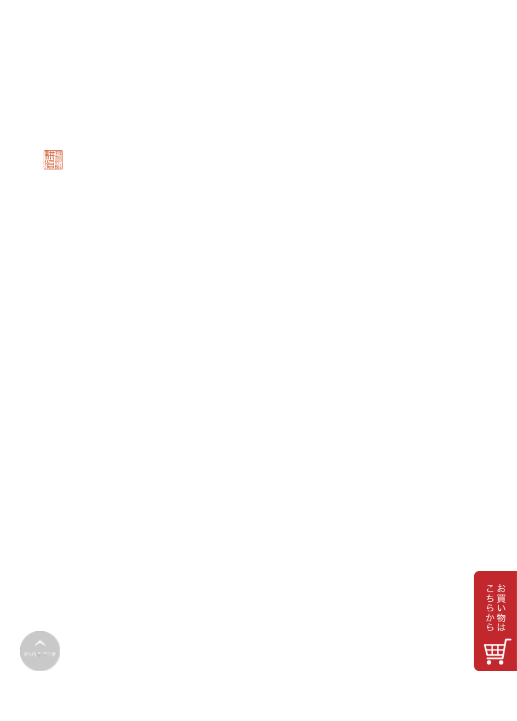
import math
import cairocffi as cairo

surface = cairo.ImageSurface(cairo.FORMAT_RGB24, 517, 721)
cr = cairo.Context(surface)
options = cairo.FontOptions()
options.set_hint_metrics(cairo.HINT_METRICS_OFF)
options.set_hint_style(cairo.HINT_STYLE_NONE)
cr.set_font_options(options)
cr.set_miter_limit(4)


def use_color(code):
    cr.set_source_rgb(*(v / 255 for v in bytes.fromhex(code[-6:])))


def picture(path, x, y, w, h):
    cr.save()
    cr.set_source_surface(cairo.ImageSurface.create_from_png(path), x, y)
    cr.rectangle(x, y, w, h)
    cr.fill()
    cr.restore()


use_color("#ffffff")
cr.paint()
picture("img1.png", 43, 150, 20, 20)
picture("img2.png", 20, 631, 40, 40)
picture("img3.png", 473, 571, 44, 100)
surface.write_to_png("result.png")
